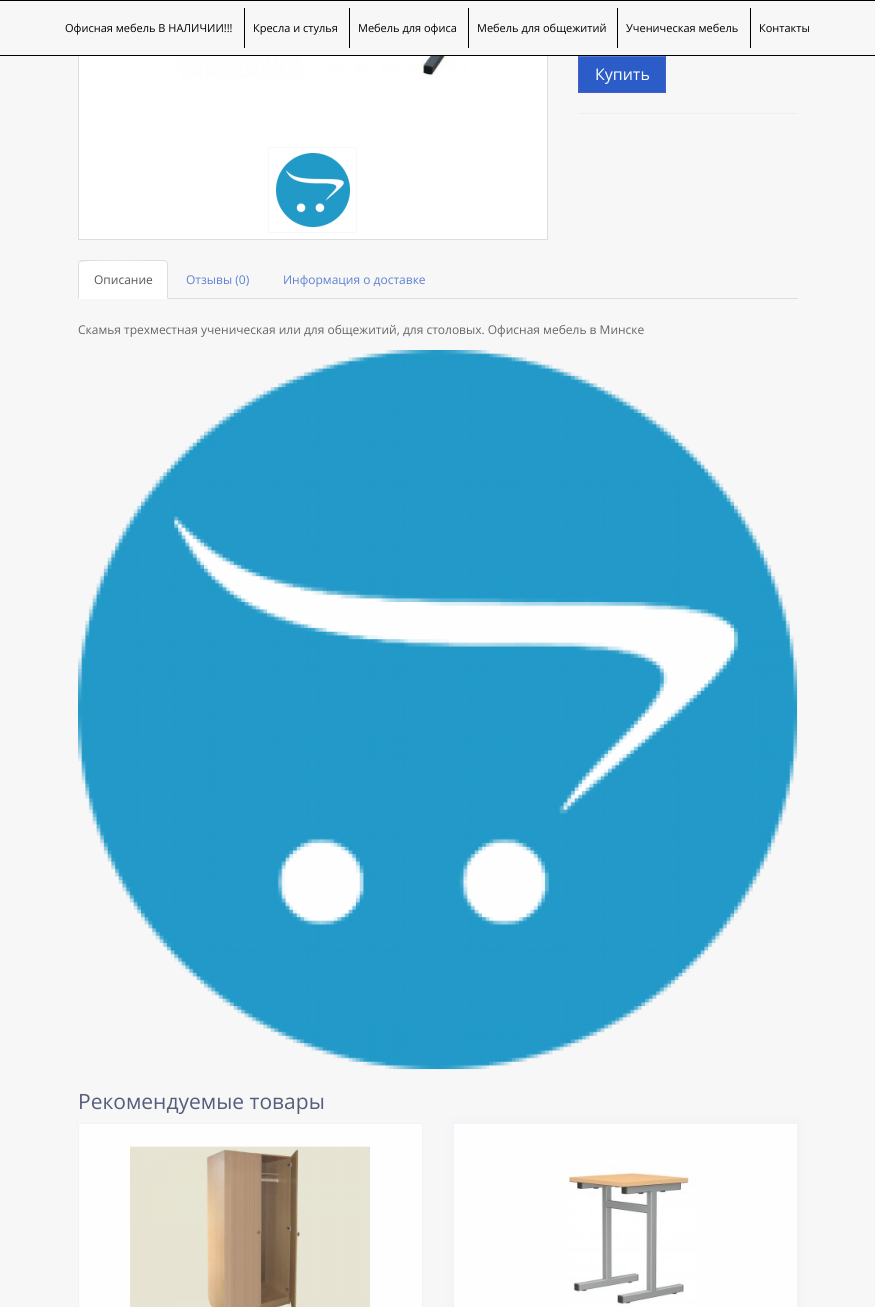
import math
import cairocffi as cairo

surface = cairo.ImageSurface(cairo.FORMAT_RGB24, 875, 1307)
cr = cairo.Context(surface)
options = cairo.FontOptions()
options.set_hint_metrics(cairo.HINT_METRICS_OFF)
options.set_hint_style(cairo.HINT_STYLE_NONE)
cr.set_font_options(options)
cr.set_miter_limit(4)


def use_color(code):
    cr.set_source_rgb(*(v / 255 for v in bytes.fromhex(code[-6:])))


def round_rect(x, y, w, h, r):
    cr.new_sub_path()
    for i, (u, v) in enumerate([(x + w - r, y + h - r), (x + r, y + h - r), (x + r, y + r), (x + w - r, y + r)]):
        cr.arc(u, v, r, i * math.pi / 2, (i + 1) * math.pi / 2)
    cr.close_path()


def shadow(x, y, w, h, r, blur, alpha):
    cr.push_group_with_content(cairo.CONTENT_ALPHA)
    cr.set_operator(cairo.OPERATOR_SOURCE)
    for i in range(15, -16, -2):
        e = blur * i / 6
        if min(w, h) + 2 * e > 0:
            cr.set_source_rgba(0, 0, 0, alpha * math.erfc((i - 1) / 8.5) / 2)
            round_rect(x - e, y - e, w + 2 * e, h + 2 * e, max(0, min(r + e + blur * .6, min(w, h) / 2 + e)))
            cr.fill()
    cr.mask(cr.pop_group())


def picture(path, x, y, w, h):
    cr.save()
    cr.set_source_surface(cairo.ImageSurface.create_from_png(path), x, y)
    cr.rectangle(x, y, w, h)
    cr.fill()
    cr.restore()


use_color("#f7f7f7")
cr.paint()
use_color("#ffffff")
cr.rectangle(79, 56, 468, 183)
cr.fill()
cr.rectangle(78.5, -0.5, 469, 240)
use_color("#dddddd")
cr.set_line_width(1)
cr.stroke()
use_color("#f7f7f7")
cr.rectangle(78, 1, 470, 54)
cr.fill()
use_color("#000000")
cr.rectangle(0, 0, 875, 1)
cr.fill()
cr.set_source_rgba(0.035, 0.255, 0.753, 0.85)
cr.rectangle(579, 57, 86, 35)
cr.fill()
use_color("#567cd3")
cr.rectangle(579, 56, 86, 1)
cr.fill()
cr.rectangle(578.5, 55.5, 87, 37)
use_color("#465ec6")
cr.stroke()
use_color("#000000")
cr.rectangle(0, 55, 875, 1)
cr.fill()
cr.select_font_face("Open Sans")
cr.set_font_size(11)
cr.move_to(65, 32)
cr.show_text("Офисная мебель В НАЛИЧИИ!!!")
cr.rectangle(244, 8, 1, 40)
cr.fill()
cr.move_to(253, 32)
cr.show_text("Кресла и стулья")
cr.rectangle(349, 8, 1, 40)
cr.fill()
cr.move_to(358, 32)
cr.show_text("Мебель для офиса")
cr.rectangle(468, 8, 1, 40)
cr.fill()
cr.move_to(477, 32)
cr.show_text("Мебель для общежитий")
cr.rectangle(617, 8, 1, 40)
cr.fill()
cr.move_to(626, 32)
cr.show_text("Ученическая мебель")
cr.rectangle(750, 8, 1, 40)
cr.fill()
cr.move_to(759, 32)
cr.show_text("Контакты")
picture("img1.png", 157, 56, 310, 22)
cr.rectangle(268.5, 147.5, 88, 85)
use_color("#f8f8f8")
cr.stroke()
picture("img2.png", 276, 153, 74, 74)
cr.set_font_size(16)
use_color("#ffffff")
cr.move_to(595, 80)
cr.show_text("Купить")
use_color("#eeeeee")
cr.rectangle(578, 113, 220, 1)
cr.fill()
use_color("#dddddd")
cr.rectangle(168, 298, 630, 1)
cr.fill()
use_color("#ffffff")
cr.new_path()
cr.move_to(82, 260)
cr.line_to(164, 260)
cr.curve_to(166, 260, 168, 262, 168, 264)
cr.line_to(168, 299)
cr.line_to(78, 299)
cr.line_to(78, 264)
cr.curve_to(78, 262, 80, 260, 82, 260)
cr.close_path()
cr.fill()
use_color("#dddddd")
cr.new_path()
cr.move_to(82, 260)
cr.line_to(79, 261)
cr.line_to(80, 262)
cr.curve_to(82, 260, 143, 261, 150, 261)
cr.line_to(164, 261)
cr.line_to(166, 262)
cr.line_to(167, 261)
cr.line_to(164, 260)
cr.close_path()
cr.fill()
cr.new_path()
cr.move_to(168, 299)
cr.line_to(168, 264)
cr.curve_to(168, 263, 167.5, 262, 167, 261)
cr.line_to(166, 262)
cr.curve_to(167, 262, 167, 263, 167, 264)
cr.line_to(167, 298)
cr.close_path()
cr.fill()
cr.new_path()
cr.move_to(78, 299)
cr.line_to(79, 298)
cr.line_to(79, 264)
cr.curve_to(79, 263, 79, 262, 80, 262)
cr.line_to(79, 261)
cr.curve_to(78.5, 262, 78, 263, 78, 264)
cr.close_path()
cr.fill()
cr.set_font_size(12)
use_color("#555555")
cr.move_to(94, 284)
cr.show_text("Описание")
use_color("#5c81d3")
cr.move_to(186, 284)
cr.show_text("Отзывы (0)")
cr.move_to(283, 284)
cr.show_text("Информация о доставке")
use_color("#666666")
cr.move_to(78, 334)
cr.show_text("Скамья трехместная ученическая или для общежитий, для столовых. Офисная мебель в Минске")
picture("img3.png", 78, 350, 720, 720)
cr.set_font_size(21)
use_color("#565d7b")
cr.move_to(78, 1109)
cr.show_text("Рекомендуемые товары")
use_color("#fefefe")
cr.rectangle(78.5, 1123.5, 344, 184)
cr.fill_preserve()
use_color("#f3f3f3")
cr.stroke()
picture("img4.png", 130, 1146, 240, 161)
use_color("#2355c6")
shadow(453, 1123, 345, 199, 0, 5, 0.05)
use_color("#fefefe")
cr.rectangle(453.5, 1123.5, 344, 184)
cr.fill_preserve()
use_color("#f3f3f3")
cr.stroke()
picture("img5.png", 568, 1164, 129, 141)
surface.write_to_png("result.png")
